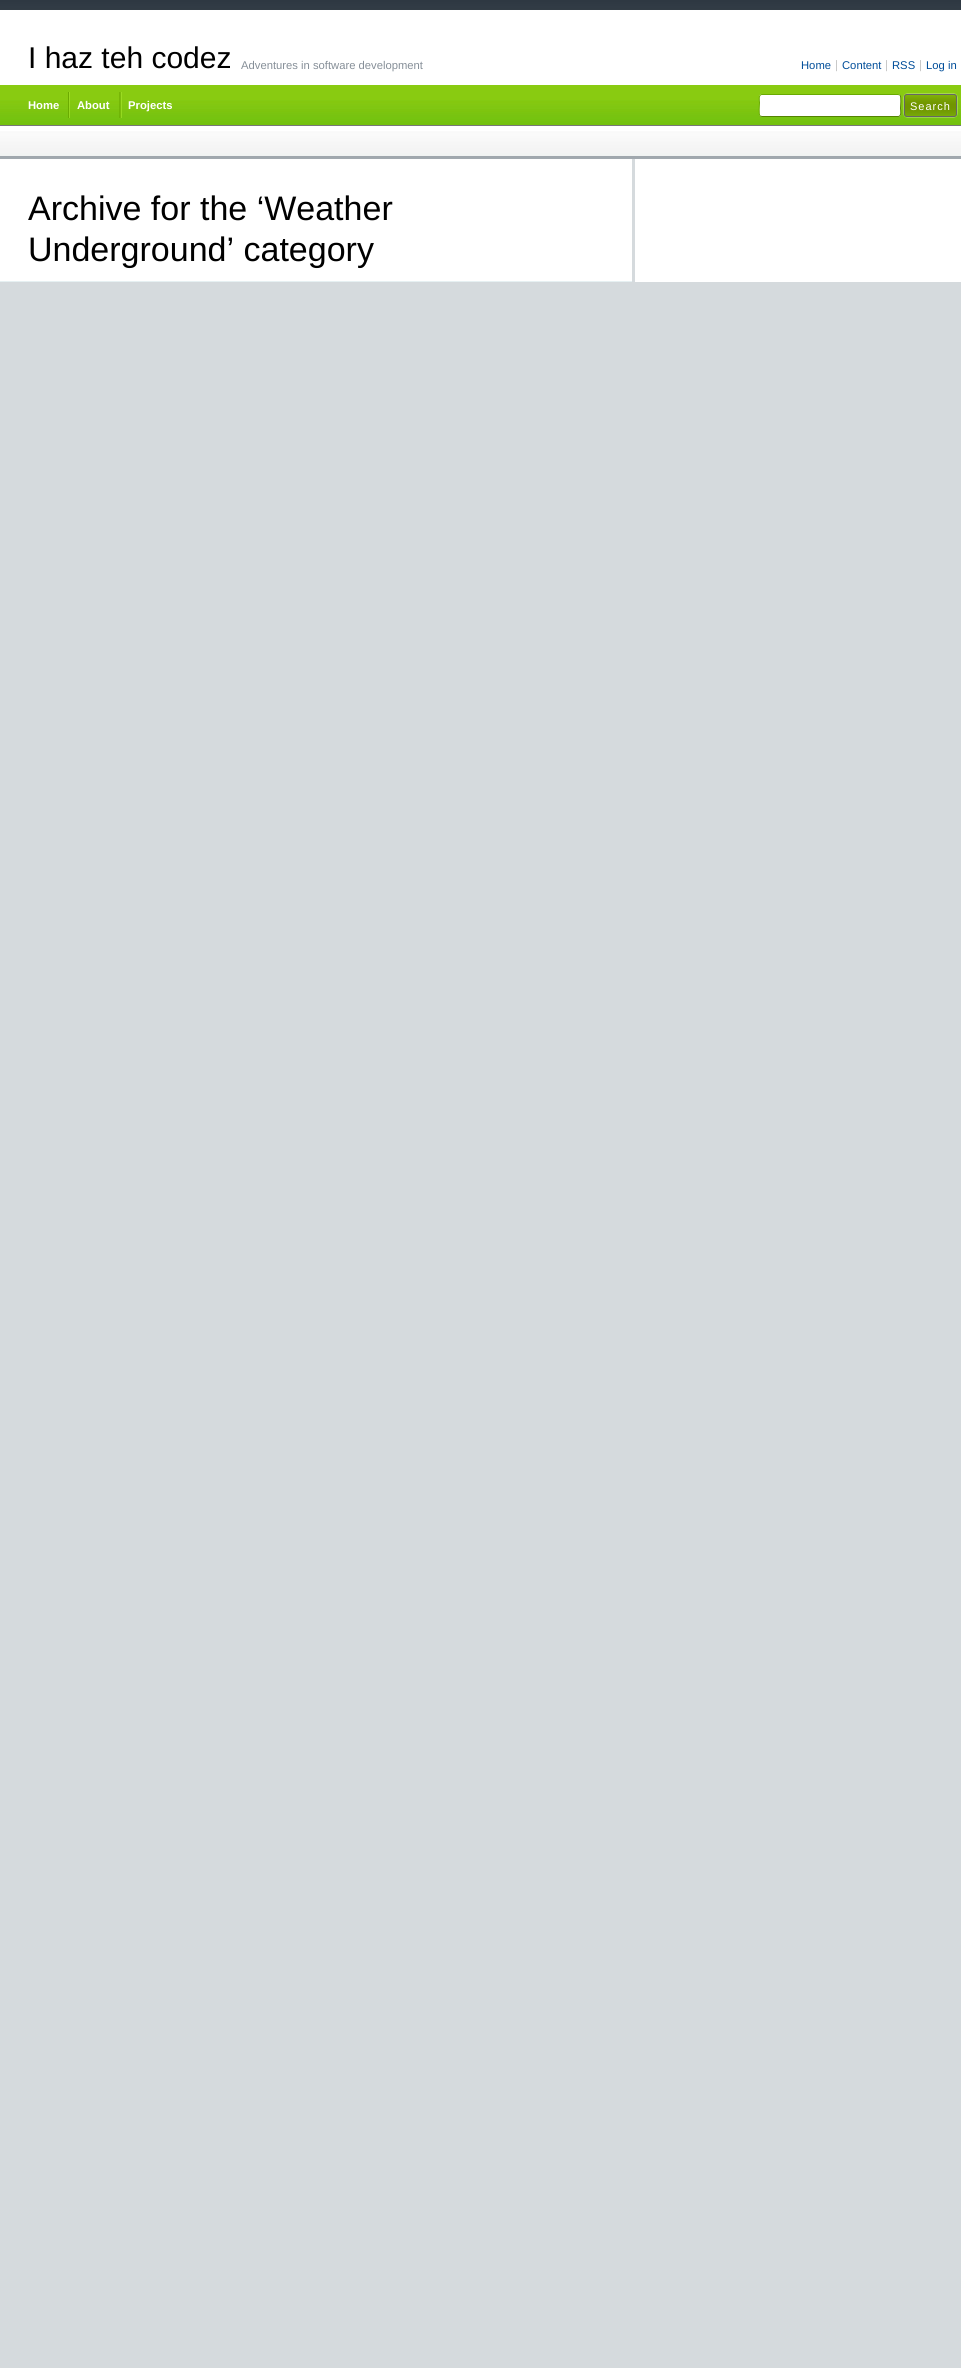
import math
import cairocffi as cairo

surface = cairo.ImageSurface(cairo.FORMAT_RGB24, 961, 2368)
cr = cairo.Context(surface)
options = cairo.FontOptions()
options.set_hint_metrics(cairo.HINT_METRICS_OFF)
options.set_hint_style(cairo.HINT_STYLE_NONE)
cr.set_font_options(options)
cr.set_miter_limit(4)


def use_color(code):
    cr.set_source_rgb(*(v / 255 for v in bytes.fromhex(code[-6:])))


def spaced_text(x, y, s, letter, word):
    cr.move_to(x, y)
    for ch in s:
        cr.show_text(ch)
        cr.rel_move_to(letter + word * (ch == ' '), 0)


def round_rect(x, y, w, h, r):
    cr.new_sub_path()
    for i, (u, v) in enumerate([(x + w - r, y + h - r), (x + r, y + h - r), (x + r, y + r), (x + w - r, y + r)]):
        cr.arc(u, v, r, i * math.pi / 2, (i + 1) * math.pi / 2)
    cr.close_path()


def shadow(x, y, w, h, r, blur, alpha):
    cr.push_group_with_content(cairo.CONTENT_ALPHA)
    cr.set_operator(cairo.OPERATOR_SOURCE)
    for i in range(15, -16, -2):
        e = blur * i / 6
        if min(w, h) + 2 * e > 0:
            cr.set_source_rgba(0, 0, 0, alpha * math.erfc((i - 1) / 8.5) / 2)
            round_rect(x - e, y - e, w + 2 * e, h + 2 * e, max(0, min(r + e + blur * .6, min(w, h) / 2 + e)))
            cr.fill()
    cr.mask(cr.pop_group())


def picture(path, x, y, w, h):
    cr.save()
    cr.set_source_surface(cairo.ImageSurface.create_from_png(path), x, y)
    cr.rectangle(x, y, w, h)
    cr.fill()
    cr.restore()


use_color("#d5dadd")
cr.paint()
picture("img1.png", 0, 0, 961, 159)
use_color("#ffffff")
cr.rectangle(0, 10, 961, 121)
cr.fill()
cr.select_font_face("Liberation Sans")
cr.set_font_size(30)
use_color("#000000")
cr.move_to(28, 68)
cr.show_text("I haz teh codez")
cr.set_font_size(11.25)
use_color("#868f98")
cr.move_to(241, 69)
cr.show_text("Adventures in software development")
picture("img2.png", 836, 60, 1, 12)
use_color("#004d99")
cr.move_to(801, 69)
cr.show_text("Home")
picture("img2.png", 886, 60, 1, 12)
cr.move_to(842, 69)
cr.show_text("Content")
picture("img2.png", 920, 60, 1, 12)
cr.move_to(892, 69)
cr.show_text("RSS")
cr.move_to(926, 69)
cr.show_text("Log in")
use_color("#89cb11")
cr.rectangle(0, 85, 961, 15)
cr.fill()
picture("img3.png", 0, 100, 961, 26)
cr.select_font_face("Liberation Sans", cairo.FONT_SLANT_NORMAL, cairo.FONT_WEIGHT_BOLD)
use_color("#ffffff")
cr.move_to(28, 109)
cr.show_text("Home")
picture("img4.png", 68, 92, 2, 26)
cr.move_to(77, 109)
cr.show_text("About")
picture("img5.png", 119, 92, 3, 26)
cr.move_to(128, 109)
cr.show_text("Projects")
round_rect(759, 94, 142, 23, 3)
cr.fill()
cr.new_path()
cr.move_to(900, 95)
cr.curve_to(901.5, 97, 900.5, 106, 900.5, 108.5)
cr.curve_to(900.5, 110, 902, 116.5, 898, 116.5)
cr.line_to(762, 116.5)
cr.line_to(760, 116)
use_color("#548301")
cr.set_line_width(1)
cr.stroke()
cr.new_path()
cr.move_to(760, 116)
cr.curve_to(758.5, 114, 759.5, 105, 759.5, 102.5)
cr.curve_to(759.5, 101, 758, 94.5, 762, 94.5)
cr.line_to(898, 94.5)
cr.line_to(900, 95)
use_color("#69ab01")
cr.stroke()
use_color("#ffffff")
shadow(904, 94, 53, 23, 3, 0.5, 1)
picture("img6.png", 904, 94, 53, 23)
round_rect(904.5, 94.5, 52, 22, 2.5)
use_color("#666666")
cr.stroke()
cr.select_font_face("Liberation Sans")
cr.set_font_size(11)
use_color("#ffffff")
spaced_text(910, 110, "Search", 1, 0)
picture("img7.png", 0, 131, 961, 25)
cr.rectangle(0, 159, 961, 123)
cr.fill()
use_color("#d5dadd")
cr.rectangle(632, 159, 3, 123)
cr.fill()
cr.set_font_size(34)
use_color("#000000")
cr.move_to(28, 220)
cr.show_text("Archive for the ‘Weather")
cr.move_to(28, 261)
cr.show_text("Underground’ category")
use_color("#e6f0f2")
cr.rectangle(0, 281, 632, 1)
cr.fill()
surface.write_to_png("result.png")
